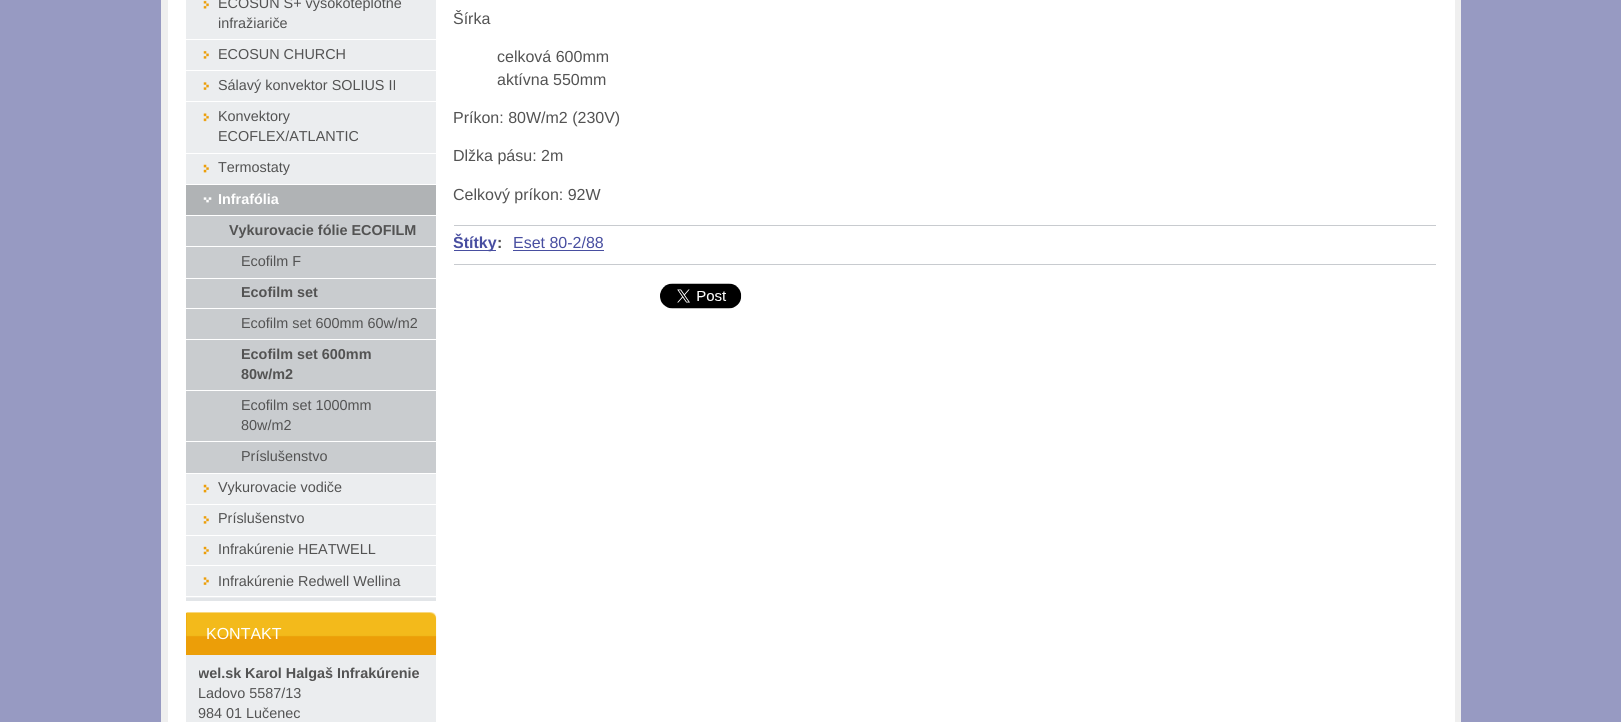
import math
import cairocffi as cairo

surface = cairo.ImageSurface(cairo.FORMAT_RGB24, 1621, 722)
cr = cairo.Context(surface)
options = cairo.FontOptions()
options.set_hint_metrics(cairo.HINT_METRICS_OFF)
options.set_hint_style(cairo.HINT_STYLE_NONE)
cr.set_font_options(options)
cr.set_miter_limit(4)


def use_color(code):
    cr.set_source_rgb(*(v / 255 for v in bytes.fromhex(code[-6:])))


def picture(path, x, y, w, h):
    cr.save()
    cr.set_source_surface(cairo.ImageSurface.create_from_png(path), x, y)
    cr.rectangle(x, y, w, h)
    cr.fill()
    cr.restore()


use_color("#979ac2")
cr.paint()
use_color("#ffffff")
cr.rectangle(168, 0, 1287, 722)
cr.fill()
use_color("#efefef")
cr.rectangle(1455, 0, 6, 722)
cr.fill()
cr.rectangle(161, 0, 7, 722)
cr.fill()
use_color("#e2e5e8")
cr.rectangle(186, 598, 250, 3)
cr.fill()
use_color("#ebedef")
cr.rectangle(186, 0, 250, 598)
cr.fill()
picture("img1.png", 203, 0, 6, 9)
use_color("#ffffff")
cr.rectangle(186, 39, 250, 1)
cr.fill()
cr.select_font_face("Liberation Sans")
cr.set_font_size(14.4)
use_color("#535353")
cr.move_to(218, 8)
cr.show_text("ECOSUN S+ vysokoteplotné")
cr.move_to(218, 28)
cr.show_text("infražiariče")
picture("img2.png", 203, 51, 6, 8)
use_color("#ffffff")
cr.rectangle(186, 70, 250, 1)
cr.fill()
use_color("#535353")
cr.move_to(218, 59)
cr.show_text("ECOSUN CHURCH")
picture("img3.png", 203, 82, 6, 8)
use_color("#ffffff")
cr.rectangle(186, 101, 250, 1)
cr.fill()
use_color("#535353")
cr.move_to(218, 90)
cr.show_text("Sálavý konvektor SOLIUS II")
picture("img4.png", 203, 113, 6, 9)
use_color("#ffffff")
cr.rectangle(186, 153, 250, 1)
cr.fill()
use_color("#535353")
cr.move_to(218, 121)
cr.show_text("Konvektory")
cr.move_to(218, 141)
cr.show_text("ECOFLEX/ATLANTIC")
picture("img5.png", 203, 164, 6, 9)
use_color("#ffffff")
cr.rectangle(186, 184, 250, 1)
cr.fill()
use_color("#535353")
cr.move_to(218, 172)
cr.show_text("Termostaty")
use_color("#b0b3b5")
cr.rectangle(186, 185, 250, 30)
cr.fill()
picture("img6.png", 203, 197, 9, 6)
use_color("#ffffff")
cr.rectangle(186, 215, 250, 1)
cr.fill()
cr.select_font_face("Liberation Sans", cairo.FONT_SLANT_NORMAL, cairo.FONT_WEIGHT_BOLD)
cr.move_to(218, 204)
cr.show_text("Infrafólia")
use_color("#c9cccf")
cr.rectangle(186, 216, 250, 257)
cr.fill()
use_color("#ffffff")
cr.rectangle(186, 246, 250, 1)
cr.fill()
use_color("#535353")
cr.move_to(229, 235)
cr.show_text("Vykurovacie fólie ECOFILM")
use_color("#ffffff")
cr.rectangle(186, 278, 250, 1)
cr.fill()
cr.select_font_face("Liberation Sans")
use_color("#535353")
cr.move_to(241, 266)
cr.show_text("Ecofilm F")
use_color("#ffffff")
cr.rectangle(186, 308, 250, 1)
cr.fill()
cr.select_font_face("Liberation Sans", cairo.FONT_SLANT_NORMAL, cairo.FONT_WEIGHT_BOLD)
use_color("#535353")
cr.move_to(241, 297)
cr.show_text("Ecofilm set")
use_color("#ffffff")
cr.rectangle(186, 339, 250, 1)
cr.fill()
cr.select_font_face("Liberation Sans")
use_color("#535353")
cr.move_to(241, 328)
cr.show_text("Ecofilm set 600mm 60w/m2")
use_color("#ffffff")
cr.rectangle(186, 390, 250, 1)
cr.fill()
cr.select_font_face("Liberation Sans", cairo.FONT_SLANT_NORMAL, cairo.FONT_WEIGHT_BOLD)
use_color("#535353")
cr.move_to(241, 359)
cr.show_text("Ecofilm set 600mm")
cr.move_to(241, 379)
cr.show_text("80w/m2")
use_color("#ffffff")
cr.rectangle(186, 441, 250, 1)
cr.fill()
cr.select_font_face("Liberation Sans")
use_color("#535353")
cr.move_to(241, 410)
cr.show_text("Ecofilm set 1000mm")
cr.move_to(241, 430)
cr.show_text("80w/m2")
use_color("#ffffff")
cr.rectangle(186, 473, 250, 1)
cr.fill()
use_color("#535353")
cr.move_to(241, 461)
cr.show_text("Príslušenstvo")
picture("img5.png", 203, 484, 6, 9)
use_color("#ffffff")
cr.rectangle(186, 504, 250, 1)
cr.fill()
use_color("#535353")
cr.move_to(218, 492)
cr.show_text("Vykurovacie vodiče")
picture("img2.png", 203, 516, 6, 8)
use_color("#ffffff")
cr.rectangle(186, 535, 250, 1)
cr.fill()
use_color("#535353")
cr.move_to(218, 523)
cr.show_text("Príslušenstvo")
picture("img7.png", 203, 546, 6, 9)
use_color("#ffffff")
cr.rectangle(186, 565, 250, 1)
cr.fill()
use_color("#535353")
cr.move_to(218, 554)
cr.show_text("Infrakúrenie HEATWELL")
picture("img3.png", 203, 577, 6, 8)
use_color("#ffffff")
cr.rectangle(186, 596, 250, 1)
cr.fill()
use_color("#535353")
cr.move_to(218, 586)
cr.show_text("Infrakúrenie Redwell Wellina")
use_color("#ebedef")
cr.rectangle(186, 655, 250, 67)
cr.fill()
use_color("#ec9e08")
cr.rectangle(186, 613, 250, 42)
cr.fill()
picture("img8.png", 186, 612, 251, 42)
cr.set_font_size(16)
use_color("#ffffff")
cr.move_to(206, 639)
cr.show_text("KONTAKT")
cr.save()
cr.rectangle(199, 665, 225, 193)
cr.clip()
cr.select_font_face("Liberation Sans", cairo.FONT_SLANT_NORMAL, cairo.FONT_WEIGHT_BOLD)
cr.set_font_size(14.4)
use_color("#535353")
cr.move_to(198, 678)
cr.show_text("wel.sk")
cr.restore()
cr.select_font_face("Liberation Sans", cairo.FONT_SLANT_NORMAL, cairo.FONT_WEIGHT_BOLD)
cr.set_font_size(14.4)
use_color("#535353")
cr.move_to(245, 678)
cr.show_text("Karol Halgaš Infrakúrenie")
cr.select_font_face("Liberation Sans")
cr.move_to(198, 698)
cr.show_text("Ladovo 5587/13")
cr.move_to(198, 718)
cr.show_text("984 01 Lučenec")
cr.set_font_size(16)
cr.move_to(453, 24)
cr.show_text("Šírka")
cr.move_to(497, 62)
cr.show_text("celková 600mm")
cr.move_to(497, 85)
cr.show_text("aktívna 550mm")
cr.move_to(453, 123)
cr.show_text("Príkon: 80W/m2 (230V)")
cr.move_to(453, 161)
cr.show_text("Dlžka pásu: 2m")
cr.move_to(453, 200)
cr.show_text("Celkový príkon: 92W")
use_color("#c8cbcf")
cr.rectangle(454, 225, 982, 1)
cr.fill()
cr.rectangle(454, 264, 982, 1)
cr.fill()
use_color("#484ea0")
cr.rectangle(454, 250, 42, 1)
cr.fill()
cr.select_font_face("Liberation Sans", cairo.FONT_SLANT_NORMAL, cairo.FONT_WEIGHT_BOLD)
cr.move_to(453, 248)
cr.show_text("Štítky")
use_color("#535353")
cr.move_to(497, 248)
cr.show_text(":")
cr.select_font_face("Liberation Sans")
use_color("#484ea0")
cr.move_to(513, 248)
cr.show_text("Eset 80-2/88")
cr.rectangle(513, 250, 91, 1)
cr.fill()
picture("img9.png", 660, 283, 82, 26)
surface.write_to_png("result.png")
